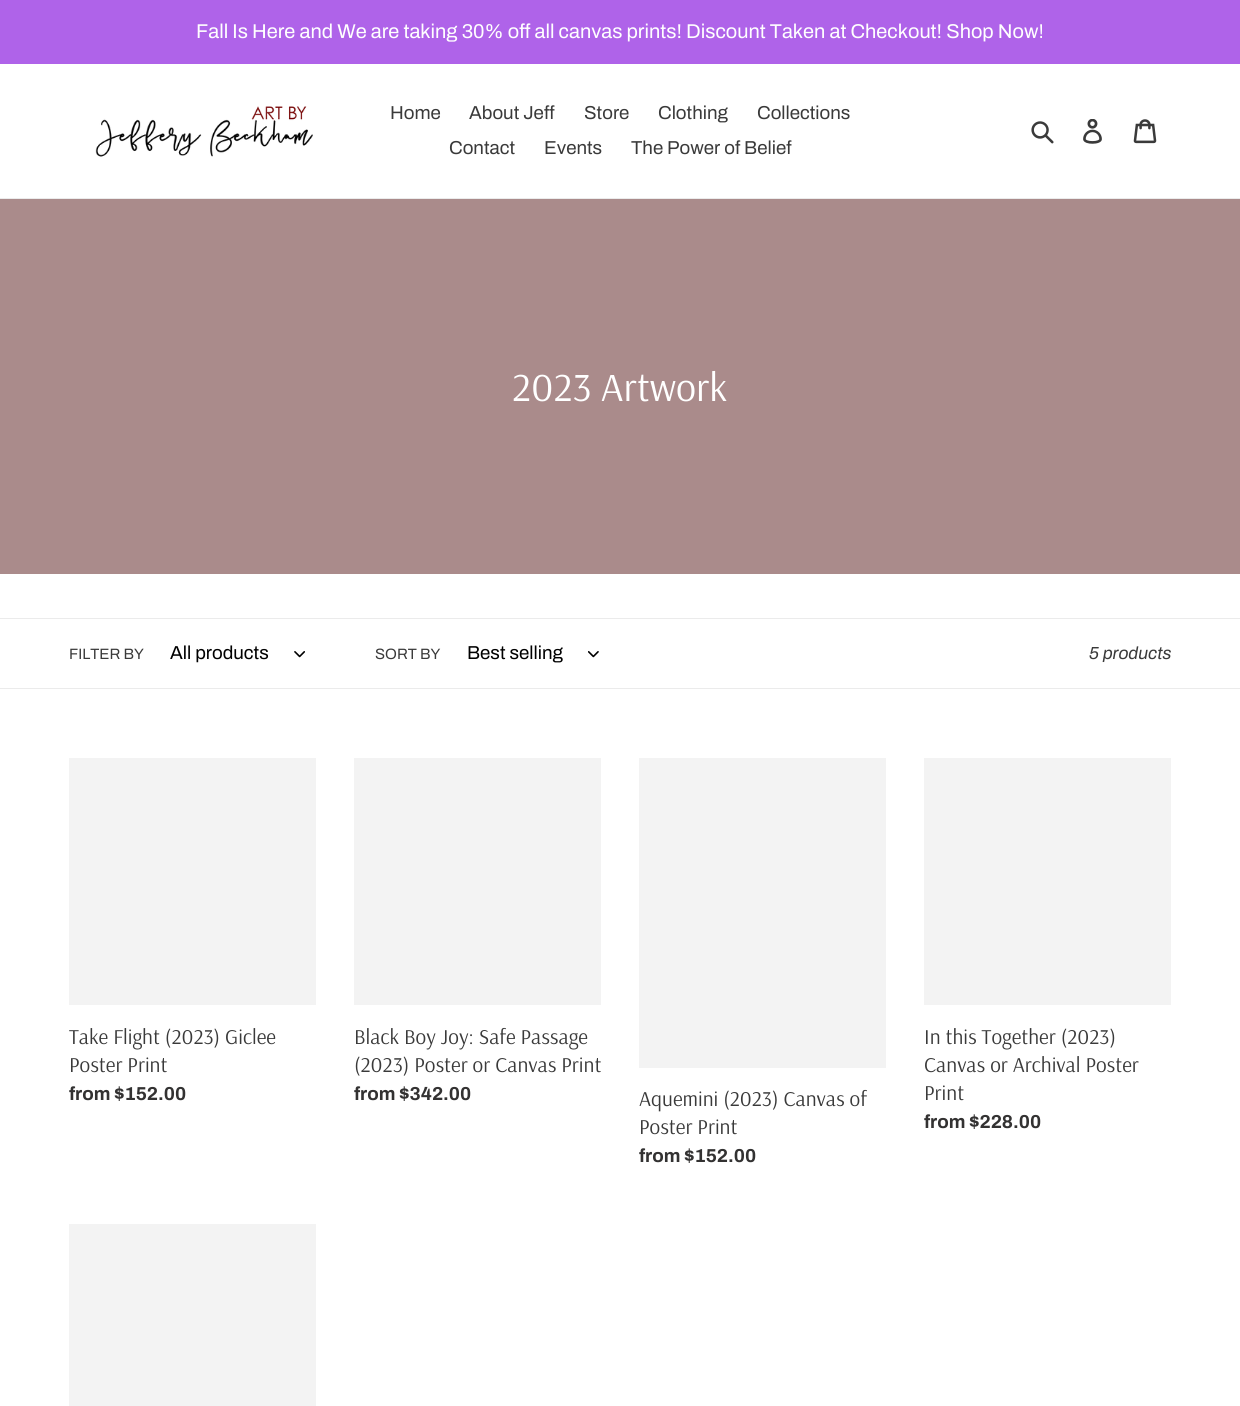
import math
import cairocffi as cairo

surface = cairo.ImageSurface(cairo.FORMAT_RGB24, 1240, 1406)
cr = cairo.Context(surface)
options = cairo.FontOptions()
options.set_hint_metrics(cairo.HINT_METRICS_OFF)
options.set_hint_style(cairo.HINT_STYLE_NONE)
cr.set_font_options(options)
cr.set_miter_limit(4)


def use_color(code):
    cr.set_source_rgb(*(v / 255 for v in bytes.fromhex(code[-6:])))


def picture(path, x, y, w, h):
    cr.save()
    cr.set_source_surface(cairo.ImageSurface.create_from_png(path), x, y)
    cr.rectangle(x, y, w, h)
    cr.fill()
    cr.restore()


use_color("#ffffff")
cr.paint()
use_color("#af63e9")
cr.rectangle(0, 0, 1240, 64)
cr.fill()
cr.select_font_face("Archivo")
cr.set_font_size(20)
use_color("#ffffff")
cr.move_to(196, 38)
cr.show_text("Fall Is Here and We are taking 30% off all canvas prints! Discount Taken at Checkout! Shop Now!")
use_color("#ebebeb")
cr.rectangle(0, 198, 1240, 1)
cr.fill()
picture("img1.png", 95, 106, 218, 51)
cr.set_font_size(18.75)
use_color("#3a3a3a")
cr.move_to(390, 119)
cr.show_text("Home")
cr.move_to(469, 119)
cr.show_text("About Jeff")
cr.move_to(584, 119)
cr.show_text("Store")
cr.move_to(658, 119)
cr.show_text("Clothing")
cr.move_to(757, 119)
cr.show_text("Collections")
cr.move_to(449, 154)
cr.show_text("Contact")
cr.move_to(544, 154)
cr.show_text("Events")
cr.move_to(631, 154)
cr.show_text("The Power of Belief")
picture("img2.png", 1031, 121, 23, 23)
picture("img3.png", 1083, 119, 19, 25)
picture("img4.png", 1133, 119, 24, 25)
use_color("#aa8b8b")
cr.rectangle(0, 199, 1240, 375)
cr.fill()
cr.select_font_face("Arsenal")
cr.set_font_size(40)
use_color("#ffffff")
cr.move_to(512, 401)
cr.show_text("2023 Artwork")
use_color("#ebebeb")
cr.rectangle(0, 618, 1240, 1)
cr.fill()
cr.rectangle(0, 688, 1240, 1)
cr.fill()
cr.select_font_face("Archivo")
cr.set_font_size(15)
use_color("#3a3a3a")
cr.move_to(69, 659)
cr.show_text("FILTER BY")
cr.set_font_size(18.75)
use_color("#000000")
cr.move_to(170, 659)
cr.show_text("All products")
picture("img5.png", 294, 651, 11, 7)
cr.set_font_size(15)
use_color("#3a3a3a")
cr.move_to(375, 659)
cr.show_text("SORT BY")
cr.set_font_size(18.75)
use_color("#000000")
cr.move_to(467, 659)
cr.show_text("Best selling")
picture("img6.png", 588, 651, 11, 7)
cr.select_font_face("Archivo", cairo.FONT_SLANT_ITALIC)
cr.set_font_size(17.5)
use_color("#3a3a3a")
cr.move_to(1089, 659)
cr.show_text("5 products")
use_color("#f3f3f3")
cr.rectangle(69, 758, 247, 247)
cr.fill()
cr.select_font_face("Arsenal")
cr.set_font_size(21.25)
use_color("#3a3a3a")
cr.move_to(69, 1044)
cr.show_text("Take Flight (2023) Giclee")
cr.move_to(69, 1072)
cr.show_text("Poster Print")
cr.select_font_face("Archivo", cairo.FONT_SLANT_NORMAL, cairo.FONT_WEIGHT_BOLD)
cr.set_font_size(18.75)
use_color("#333232")
cr.move_to(69, 1100)
cr.show_text("from $152.00")
use_color("#f3f3f3")
cr.rectangle(354, 758, 247, 247)
cr.fill()
cr.select_font_face("Arsenal")
cr.set_font_size(21.25)
use_color("#3a3a3a")
cr.move_to(354, 1044)
cr.show_text("Black Boy Joy: Safe Passage")
cr.move_to(354, 1072)
cr.show_text("(2023) Poster or Canvas Print")
cr.select_font_face("Archivo", cairo.FONT_SLANT_NORMAL, cairo.FONT_WEIGHT_BOLD)
cr.set_font_size(18.75)
use_color("#333232")
cr.move_to(354, 1100)
cr.show_text("from $342.00")
use_color("#f3f3f3")
cr.rectangle(639, 758, 247, 310)
cr.fill()
cr.select_font_face("Arsenal")
cr.set_font_size(21.25)
use_color("#3a3a3a")
cr.move_to(639, 1106)
cr.show_text("Aquemini (2023) Canvas of")
cr.move_to(639, 1134)
cr.show_text("Poster Print")
cr.select_font_face("Archivo", cairo.FONT_SLANT_NORMAL, cairo.FONT_WEIGHT_BOLD)
cr.set_font_size(18.75)
use_color("#333232")
cr.move_to(639, 1162)
cr.show_text("from $152.00")
use_color("#f3f3f3")
cr.rectangle(924, 758, 247, 247)
cr.fill()
cr.select_font_face("Arsenal")
cr.set_font_size(21.25)
use_color("#3a3a3a")
cr.move_to(924, 1044)
cr.show_text("In this Together (2023)")
cr.move_to(924, 1072)
cr.show_text("Canvas or Archival Poster")
cr.move_to(924, 1100)
cr.show_text("Print")
cr.select_font_face("Archivo", cairo.FONT_SLANT_NORMAL, cairo.FONT_WEIGHT_BOLD)
cr.set_font_size(18.75)
use_color("#333232")
cr.move_to(924, 1128)
cr.show_text("from $228.00")
use_color("#f3f3f3")
cr.rectangle(69, 1224, 247, 182)
cr.fill()
surface.write_to_png("result.png")
